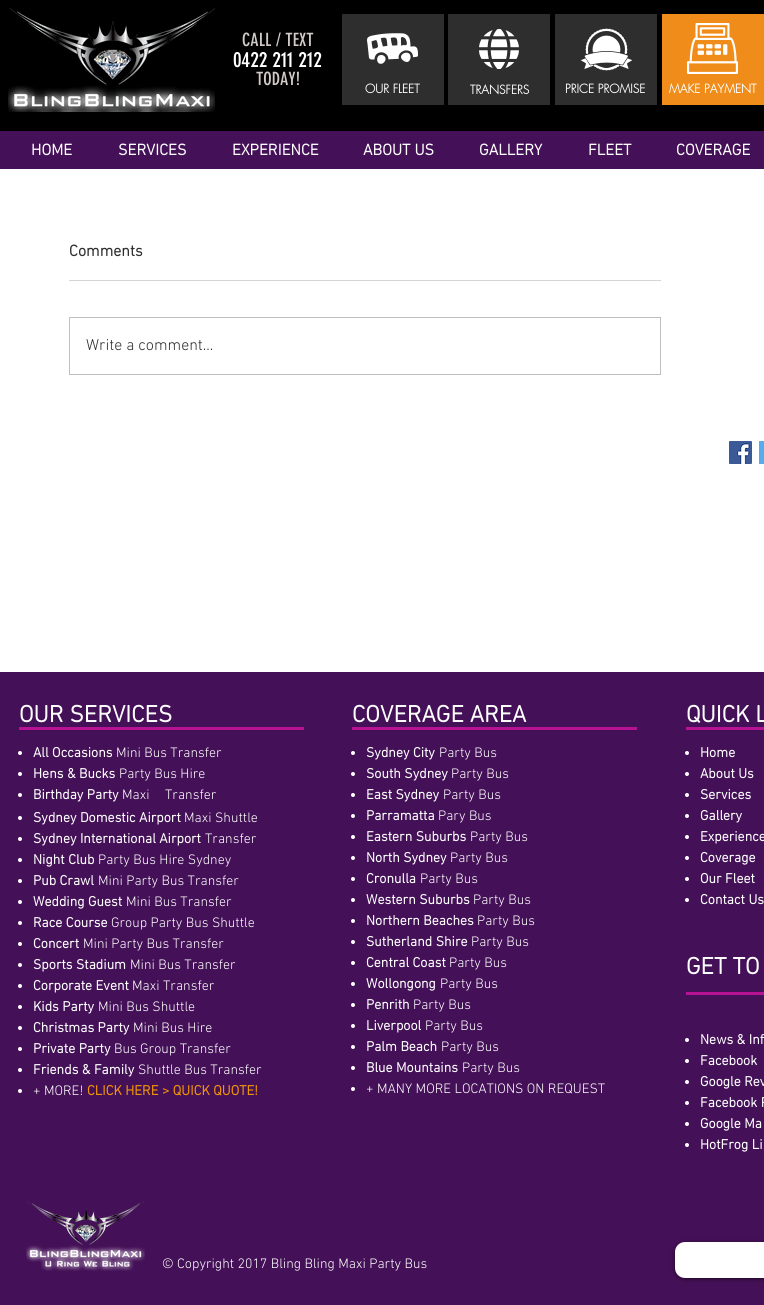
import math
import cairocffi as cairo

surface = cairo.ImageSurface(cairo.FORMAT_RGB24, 764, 1305)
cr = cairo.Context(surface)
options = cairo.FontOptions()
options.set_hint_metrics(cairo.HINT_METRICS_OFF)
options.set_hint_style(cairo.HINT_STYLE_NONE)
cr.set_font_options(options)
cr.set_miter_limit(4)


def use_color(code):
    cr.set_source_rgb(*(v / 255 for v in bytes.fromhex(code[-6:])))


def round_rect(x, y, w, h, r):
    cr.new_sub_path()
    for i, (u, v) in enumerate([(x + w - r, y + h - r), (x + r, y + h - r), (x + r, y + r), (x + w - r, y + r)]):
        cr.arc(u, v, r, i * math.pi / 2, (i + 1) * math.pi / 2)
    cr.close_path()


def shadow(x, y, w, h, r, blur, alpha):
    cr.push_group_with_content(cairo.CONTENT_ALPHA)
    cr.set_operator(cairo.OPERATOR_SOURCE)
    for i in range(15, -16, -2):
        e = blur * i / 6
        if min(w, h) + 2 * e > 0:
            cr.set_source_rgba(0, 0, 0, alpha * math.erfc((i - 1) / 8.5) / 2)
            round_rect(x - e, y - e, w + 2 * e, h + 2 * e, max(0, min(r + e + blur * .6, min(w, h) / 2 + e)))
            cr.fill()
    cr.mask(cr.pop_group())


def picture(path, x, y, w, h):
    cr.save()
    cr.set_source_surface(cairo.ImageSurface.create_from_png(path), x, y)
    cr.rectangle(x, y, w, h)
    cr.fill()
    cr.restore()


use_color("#ffffff")
cr.paint()
use_color("#000000")
cr.rectangle(0, 0, 764, 131)
cr.fill()
picture("img1.png", 8, 7, 207, 105)
cr.select_font_face("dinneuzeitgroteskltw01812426")
cr.set_font_size(18)
use_color("#d1cac9")
cr.move_to(242, 46)
cr.show_text("CALL / TEXT")
cr.set_font_size(21)
use_color("#ffffff")
cr.move_to(233, 67)
cr.show_text("0422 211 212")
cr.set_font_size(18)
use_color("#d1cac9")
cr.move_to(256, 85)
cr.show_text("TODAY!")
use_color("#2f2e2e")
cr.rectangle(342, 14, 102, 91)
cr.fill()
picture("img2.png", 367, 33, 51, 31)
cr.select_font_face("futura", cairo.FONT_SLANT_NORMAL, cairo.FONT_WEIGHT_BOLD)
cr.set_font_size(12)
use_color("#ffffff")
cr.move_to(365, 93)
cr.show_text("OUR FLEET")
use_color("#2f2e2e")
cr.rectangle(448, 14, 102, 91)
cr.fill()
picture("img3.png", 479, 29, 40, 40)
use_color("#ffffff")
cr.move_to(470, 94)
cr.show_text("TRANSFERS")
use_color("#2f2e2e")
cr.rectangle(555, 14, 102, 91)
cr.fill()
picture("img4.png", 581, 28, 51, 43)
use_color("#ffffff")
cr.move_to(565, 93)
cr.show_text("PRICE PROMISE")
use_color("#f08c1a")
cr.rectangle(662, 14, 102, 91)
cr.fill()
picture("img5.png", 687, 23, 51, 51)
use_color("#ffffff")
cr.move_to(669, 93)
cr.show_text("MAKE PAYMENT")
use_color("#441057")
cr.rectangle(0, 131, 764, 38)
cr.fill()
cr.select_font_face("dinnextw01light", cairo.FONT_SLANT_NORMAL, cairo.FONT_WEIGHT_BOLD)
cr.set_font_size(16)
use_color("#ffffff")
cr.move_to(31, 155)
cr.show_text("HOME")
cr.move_to(118, 155)
cr.show_text("SERVICES")
cr.move_to(232, 155)
cr.show_text("EXPERIENCE")
cr.move_to(363, 155)
cr.show_text("ABOUT US")
cr.move_to(479, 155)
cr.show_text("GALLERY")
cr.move_to(588, 155)
cr.show_text("FLEET")
cr.move_to(676, 155)
cr.show_text("COVERAGE")
use_color("#2f2e2e")
cr.move_to(69, 256)
cr.show_text("Comments")
use_color("#d5d5d5")
cr.rectangle(69, 280, 592, 1)
cr.fill()
cr.rectangle(69.5, 317.5, 591, 57)
use_color("#c1c0c0")
cr.set_line_width(1)
cr.stroke()
cr.select_font_face("dinnextw01light Light")
use_color("#2f2e2e")
cr.move_to(86, 350)
cr.show_text("Write a comment...")
picture("img6.png", 729, 441, 23, 23)
use_color("#55acee")
cr.rectangle(759, 441, 5, 23)
cr.fill()
use_color("#441057")
cr.rectangle(0, 672, 764, 633)
cr.fill()
cr.select_font_face("dinnextw01light", cairo.FONT_SLANT_NORMAL, cairo.FONT_WEIGHT_BOLD)
cr.set_font_size(24)
use_color("#ffffff")
cr.move_to(19, 722)
cr.show_text("OUR SERVICES")
cr.move_to(352, 722)
cr.show_text("COVERAGE AREA")
cr.move_to(686, 722)
cr.show_text("QUICK L")
use_color("#b81294")
cr.rectangle(19, 727, 285, 3)
cr.fill()
cr.rectangle(352, 727, 285, 3)
cr.fill()
cr.rectangle(686, 727, 78, 3)
cr.fill()
use_color("#ffffff")
cr.arc(20, 753, 2, 0, 2 * math.pi)
cr.fill()
cr.set_font_size(14)
cr.move_to(33, 757)
cr.show_text("All Occasions")
cr.select_font_face("dinnextw01light Light")
cr.move_to(116, 757)
cr.show_text("Mini Bus Transfer")
cr.new_path()
cr.arc(20, 774, 2, 0, 2 * math.pi)
cr.fill()
cr.select_font_face("dinnextw01light", cairo.FONT_SLANT_NORMAL, cairo.FONT_WEIGHT_BOLD)
cr.move_to(33, 778)
cr.show_text("Hens & Bucks")
cr.select_font_face("dinnextw01light Light")
cr.move_to(119, 778)
cr.show_text("Party Bus Hire")
cr.new_path()
cr.arc(20, 795, 2, 0, 2 * math.pi)
cr.fill()
cr.select_font_face("dinnextw01light", cairo.FONT_SLANT_NORMAL, cairo.FONT_WEIGHT_BOLD)
cr.move_to(33, 799)
cr.show_text("Birthday Party")
cr.select_font_face("dinnextw01light Light")
cr.move_to(122, 799)
cr.show_text("Maxi")
cr.move_to(165, 799)
cr.show_text("Transfer")
cr.new_path()
cr.arc(20, 818, 2, 0, 2 * math.pi)
cr.fill()
cr.select_font_face("dinnextw01light", cairo.FONT_SLANT_NORMAL, cairo.FONT_WEIGHT_BOLD)
cr.move_to(33, 822)
cr.show_text("Sydney Domestic Airport")
cr.select_font_face("dinnextw01light Light")
cr.move_to(184, 822)
cr.show_text("Maxi Shuttle")
cr.new_path()
cr.arc(20, 839, 2, 0, 2 * math.pi)
cr.fill()
cr.select_font_face("dinnextw01light", cairo.FONT_SLANT_NORMAL, cairo.FONT_WEIGHT_BOLD)
cr.move_to(33, 843)
cr.show_text("Sydney International Airport")
cr.select_font_face("dinnextw01light Light")
cr.move_to(205, 843)
cr.show_text("Transfer")
cr.new_path()
cr.arc(20, 860, 2, 0, 2 * math.pi)
cr.fill()
cr.select_font_face("dinnextw01light", cairo.FONT_SLANT_NORMAL, cairo.FONT_WEIGHT_BOLD)
cr.move_to(33, 864)
cr.show_text("Night Club")
cr.select_font_face("dinnextw01light Light")
cr.move_to(98, 864)
cr.show_text("Party Bus Hire Sydney")
cr.new_path()
cr.arc(20, 881, 2, 0, 2 * math.pi)
cr.fill()
cr.select_font_face("dinnextw01light", cairo.FONT_SLANT_NORMAL, cairo.FONT_WEIGHT_BOLD)
cr.move_to(33, 885)
cr.show_text("Pub Crawl")
cr.select_font_face("dinnextw01light Light")
cr.move_to(98, 885)
cr.show_text("Mini Party Bus Transfer")
cr.new_path()
cr.arc(20, 902, 2, 0, 2 * math.pi)
cr.fill()
cr.select_font_face("dinnextw01light", cairo.FONT_SLANT_NORMAL, cairo.FONT_WEIGHT_BOLD)
cr.move_to(33, 906)
cr.show_text("Wedding Guest")
cr.select_font_face("dinnextw01light Light")
cr.move_to(126, 906)
cr.show_text("Mini Bus Transfer")
cr.new_path()
cr.arc(20, 923, 2, 0, 2 * math.pi)
cr.fill()
cr.select_font_face("dinnextw01light", cairo.FONT_SLANT_NORMAL, cairo.FONT_WEIGHT_BOLD)
cr.move_to(33, 927)
cr.show_text("Race Course")
cr.select_font_face("dinnextw01light Light")
cr.move_to(111, 927)
cr.show_text("Group Party Bus Shuttle")
cr.new_path()
cr.arc(20, 944, 2, 0, 2 * math.pi)
cr.fill()
cr.select_font_face("dinnextw01light", cairo.FONT_SLANT_NORMAL, cairo.FONT_WEIGHT_BOLD)
cr.move_to(33, 948)
cr.show_text("Concert")
cr.select_font_face("dinnextw01light Light")
cr.move_to(83, 948)
cr.show_text("Mini Party Bus Transfer")
cr.new_path()
cr.arc(20, 965, 2, 0, 2 * math.pi)
cr.fill()
cr.select_font_face("dinnextw01light", cairo.FONT_SLANT_NORMAL, cairo.FONT_WEIGHT_BOLD)
cr.move_to(33, 969)
cr.show_text("Sports Stadium")
cr.select_font_face("dinnextw01light Light")
cr.move_to(130, 969)
cr.show_text("Mini Bus Transfer")
cr.new_path()
cr.arc(20, 986, 2, 0, 2 * math.pi)
cr.fill()
cr.select_font_face("dinnextw01light", cairo.FONT_SLANT_NORMAL, cairo.FONT_WEIGHT_BOLD)
cr.move_to(33, 990)
cr.show_text("Corporate Event")
cr.select_font_face("dinnextw01light Light")
cr.move_to(132, 990)
cr.show_text("Maxi Transfer")
cr.new_path()
cr.arc(20, 1007, 2, 0, 2 * math.pi)
cr.fill()
cr.select_font_face("dinnextw01light", cairo.FONT_SLANT_NORMAL, cairo.FONT_WEIGHT_BOLD)
cr.move_to(33, 1011)
cr.show_text("Kids Party")
cr.select_font_face("dinnextw01light Light")
cr.move_to(98, 1011)
cr.show_text("Mini Bus Shuttle")
cr.new_path()
cr.arc(20, 1028, 2, 0, 2 * math.pi)
cr.fill()
cr.select_font_face("dinnextw01light", cairo.FONT_SLANT_NORMAL, cairo.FONT_WEIGHT_BOLD)
cr.move_to(33, 1032)
cr.show_text("Christmas Party")
cr.select_font_face("dinnextw01light Light")
cr.move_to(133, 1032)
cr.show_text("Mini Bus Hire")
cr.new_path()
cr.arc(20, 1049, 2, 0, 2 * math.pi)
cr.fill()
cr.select_font_face("dinnextw01light", cairo.FONT_SLANT_NORMAL, cairo.FONT_WEIGHT_BOLD)
cr.move_to(33, 1053)
cr.show_text("Private Party")
cr.select_font_face("dinnextw01light Light")
cr.move_to(114, 1053)
cr.show_text("Bus Group Transfer")
cr.new_path()
cr.arc(20, 1070, 2, 0, 2 * math.pi)
cr.fill()
cr.select_font_face("dinnextw01light", cairo.FONT_SLANT_NORMAL, cairo.FONT_WEIGHT_BOLD)
cr.move_to(33, 1074)
cr.show_text("Friends & Family")
cr.select_font_face("dinnextw01light Light")
cr.move_to(138, 1074)
cr.show_text("Shuttle Bus Transfer")
cr.new_path()
cr.arc(20, 1091, 2, 0, 2 * math.pi)
cr.fill()
cr.move_to(33, 1095)
cr.show_text("+ MORE!")
cr.select_font_face("dinnextw01light", cairo.FONT_SLANT_NORMAL, cairo.FONT_WEIGHT_BOLD)
use_color("#f29407")
cr.move_to(87, 1095)
cr.show_text("CLICK HERE > QUICK QUOTE!")
use_color("#ffffff")
cr.new_path()
cr.arc(353, 753, 2, 0, 2 * math.pi)
cr.fill()
cr.move_to(366, 757)
cr.show_text("Sydney City")
cr.select_font_face("dinnextw01light Light")
cr.move_to(439, 757)
cr.show_text("Party Bus")
cr.new_path()
cr.arc(353, 774, 2, 0, 2 * math.pi)
cr.fill()
cr.select_font_face("dinnextw01light", cairo.FONT_SLANT_NORMAL, cairo.FONT_WEIGHT_BOLD)
cr.move_to(366, 778)
cr.show_text("South Sydney")
cr.select_font_face("dinnextw01light Light")
cr.move_to(451, 778)
cr.show_text("Party Bus")
cr.new_path()
cr.arc(353, 795, 2, 0, 2 * math.pi)
cr.fill()
cr.select_font_face("dinnextw01light", cairo.FONT_SLANT_NORMAL, cairo.FONT_WEIGHT_BOLD)
cr.move_to(366, 799)
cr.show_text("East Sydney")
cr.select_font_face("dinnextw01light Light")
cr.move_to(443, 799)
cr.show_text("Party Bus")
cr.new_path()
cr.arc(353, 816, 2, 0, 2 * math.pi)
cr.fill()
cr.select_font_face("dinnextw01light", cairo.FONT_SLANT_NORMAL, cairo.FONT_WEIGHT_BOLD)
cr.move_to(366, 820)
cr.show_text("Parramatta")
cr.select_font_face("dinnextw01light Light")
cr.move_to(438, 820)
cr.show_text("Pary Bus")
cr.new_path()
cr.arc(353, 837, 2, 0, 2 * math.pi)
cr.fill()
cr.select_font_face("dinnextw01light", cairo.FONT_SLANT_NORMAL, cairo.FONT_WEIGHT_BOLD)
cr.move_to(366, 841)
cr.show_text("Eastern Suburbs")
cr.select_font_face("dinnextw01light Light")
cr.move_to(470, 841)
cr.show_text("Party Bus")
cr.new_path()
cr.arc(353, 858, 2, 0, 2 * math.pi)
cr.fill()
cr.select_font_face("dinnextw01light", cairo.FONT_SLANT_NORMAL, cairo.FONT_WEIGHT_BOLD)
cr.move_to(366, 862)
cr.show_text("North Sydney")
cr.select_font_face("dinnextw01light Light")
cr.move_to(450, 862)
cr.show_text("Party Bus")
cr.new_path()
cr.arc(353, 879, 2, 0, 2 * math.pi)
cr.fill()
cr.select_font_face("dinnextw01light", cairo.FONT_SLANT_NORMAL, cairo.FONT_WEIGHT_BOLD)
cr.move_to(366, 883)
cr.show_text("Cronulla")
cr.select_font_face("dinnextw01light Light")
cr.move_to(420, 883)
cr.show_text("Party Bus")
cr.new_path()
cr.arc(353, 900, 2, 0, 2 * math.pi)
cr.fill()
cr.select_font_face("dinnextw01light", cairo.FONT_SLANT_NORMAL, cairo.FONT_WEIGHT_BOLD)
cr.move_to(366, 904)
cr.show_text("Western Suburbs")
cr.select_font_face("dinnextw01light Light")
cr.move_to(473, 904)
cr.show_text("Party Bus")
cr.new_path()
cr.arc(353, 921, 2, 0, 2 * math.pi)
cr.fill()
cr.select_font_face("dinnextw01light", cairo.FONT_SLANT_NORMAL, cairo.FONT_WEIGHT_BOLD)
cr.move_to(366, 925)
cr.show_text("Northern Beaches")
cr.select_font_face("dinnextw01light Light")
cr.move_to(477, 925)
cr.show_text("Party Bus")
cr.new_path()
cr.arc(353, 942, 2, 0, 2 * math.pi)
cr.fill()
cr.select_font_face("dinnextw01light", cairo.FONT_SLANT_NORMAL, cairo.FONT_WEIGHT_BOLD)
cr.move_to(366, 946)
cr.show_text("Sutherland Shire")
cr.select_font_face("dinnextw01light Light")
cr.move_to(471, 946)
cr.show_text("Party Bus")
cr.new_path()
cr.arc(353, 963, 2, 0, 2 * math.pi)
cr.fill()
cr.select_font_face("dinnextw01light", cairo.FONT_SLANT_NORMAL, cairo.FONT_WEIGHT_BOLD)
cr.move_to(366, 967)
cr.show_text("Central Coast")
cr.select_font_face("dinnextw01light Light")
cr.move_to(449, 967)
cr.show_text("Party Bus")
cr.new_path()
cr.arc(353, 984, 2, 0, 2 * math.pi)
cr.fill()
cr.select_font_face("dinnextw01light", cairo.FONT_SLANT_NORMAL, cairo.FONT_WEIGHT_BOLD)
cr.move_to(366, 988)
cr.show_text("Wollongong")
cr.select_font_face("dinnextw01light Light")
cr.move_to(440, 988)
cr.show_text("Party Bus")
cr.new_path()
cr.arc(353, 1005, 2, 0, 2 * math.pi)
cr.fill()
cr.select_font_face("dinnextw01light", cairo.FONT_SLANT_NORMAL, cairo.FONT_WEIGHT_BOLD)
cr.move_to(366, 1009)
cr.show_text("Penrith")
cr.select_font_face("dinnextw01light Light")
cr.move_to(413, 1009)
cr.show_text("Party Bus")
cr.new_path()
cr.arc(353, 1026, 2, 0, 2 * math.pi)
cr.fill()
cr.select_font_face("dinnextw01light", cairo.FONT_SLANT_NORMAL, cairo.FONT_WEIGHT_BOLD)
cr.move_to(366, 1030)
cr.show_text("Liverpool")
cr.select_font_face("dinnextw01light Light")
cr.move_to(425, 1030)
cr.show_text("Party Bus")
cr.new_path()
cr.arc(353, 1047, 2, 0, 2 * math.pi)
cr.fill()
cr.select_font_face("dinnextw01light", cairo.FONT_SLANT_NORMAL, cairo.FONT_WEIGHT_BOLD)
cr.move_to(366, 1051)
cr.show_text("Palm Beach")
cr.select_font_face("dinnextw01light Light")
cr.move_to(441, 1051)
cr.show_text("Party Bus")
cr.new_path()
cr.arc(353, 1068, 2, 0, 2 * math.pi)
cr.fill()
cr.select_font_face("dinnextw01light", cairo.FONT_SLANT_NORMAL, cairo.FONT_WEIGHT_BOLD)
cr.move_to(366, 1072)
cr.show_text("Blue Mountains")
cr.select_font_face("dinnextw01light Light")
cr.move_to(462, 1072)
cr.show_text("Party Bus")
cr.new_path()
cr.arc(353, 1089, 2, 0, 2 * math.pi)
cr.fill()
cr.move_to(366, 1093)
cr.show_text("+ MANY MORE LOCATIONS ON REQUEST")
cr.new_path()
cr.arc(687, 753, 2, 0, 2 * math.pi)
cr.fill()
cr.select_font_face("dinnextw01light", cairo.FONT_SLANT_NORMAL, cairo.FONT_WEIGHT_BOLD)
cr.move_to(700, 757)
cr.show_text("Home")
cr.new_path()
cr.arc(687, 774, 2, 0, 2 * math.pi)
cr.fill()
cr.move_to(700, 778)
cr.show_text("About Us")
cr.new_path()
cr.arc(687, 795, 2, 0, 2 * math.pi)
cr.fill()
cr.move_to(700, 799)
cr.show_text("Services")
cr.new_path()
cr.arc(687, 816, 2, 0, 2 * math.pi)
cr.fill()
cr.move_to(700, 820)
cr.show_text("Gallery")
cr.new_path()
cr.arc(687, 837, 2, 0, 2 * math.pi)
cr.fill()
cr.move_to(700, 841)
cr.show_text("Experience")
cr.new_path()
cr.arc(687, 858, 2, 0, 2 * math.pi)
cr.fill()
cr.move_to(700, 862)
cr.show_text("Coverage")
cr.new_path()
cr.arc(687, 879, 2, 0, 2 * math.pi)
cr.fill()
cr.move_to(700, 883)
cr.show_text("Our Fleet")
cr.new_path()
cr.arc(687, 900, 2, 0, 2 * math.pi)
cr.fill()
cr.move_to(700, 904)
cr.show_text("Contact Us")
cr.set_font_size(24)
cr.move_to(686, 974)
cr.show_text("GET TO")
use_color("#b81294")
cr.rectangle(686, 992, 78, 3)
cr.fill()
use_color("#ffffff")
cr.arc(687, 1040, 2, 0, 2 * math.pi)
cr.fill()
cr.set_font_size(14)
cr.move_to(700, 1044)
cr.show_text("News & Inf")
cr.new_path()
cr.arc(687, 1061, 2, 0, 2 * math.pi)
cr.fill()
cr.move_to(700, 1065)
cr.show_text("Facebook")
cr.new_path()
cr.arc(687, 1082, 2, 0, 2 * math.pi)
cr.fill()
cr.move_to(700, 1086)
cr.show_text("Google Rev")
cr.new_path()
cr.arc(687, 1103, 2, 0, 2 * math.pi)
cr.fill()
cr.move_to(700, 1107)
cr.show_text("Facebook P")
cr.new_path()
cr.arc(687, 1124, 2, 0, 2 * math.pi)
cr.fill()
cr.move_to(700, 1128)
cr.show_text("Google Ma")
cr.new_path()
cr.arc(687, 1145, 2, 0, 2 * math.pi)
cr.fill()
cr.move_to(700, 1149)
cr.show_text("HotFrog Li")
picture("img7.png", 26, 1201, 119, 70)
cr.select_font_face("dinnextw01light Light")
cr.move_to(162, 1268)
cr.show_text("© Copyright 2017 Bling Bling Maxi Party Bus")
use_color("#000000")
shadow(675, 1243, 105, 36, 10, 2, 0.6)
use_color("#ffffff")
round_rect(675, 1242, 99, 36, 10)
cr.fill()
surface.write_to_png("result.png")
